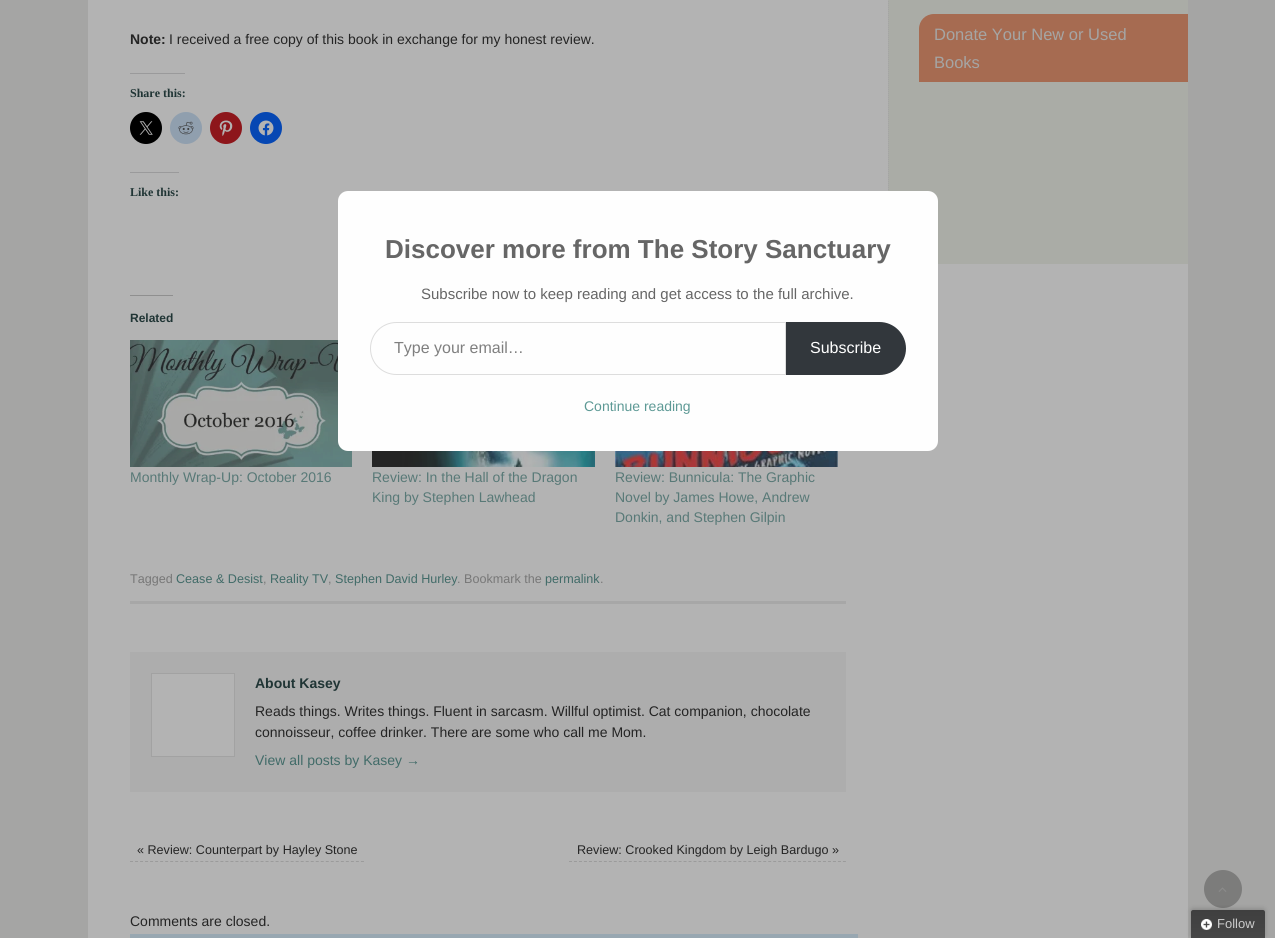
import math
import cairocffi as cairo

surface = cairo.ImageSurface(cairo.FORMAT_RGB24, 1275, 938)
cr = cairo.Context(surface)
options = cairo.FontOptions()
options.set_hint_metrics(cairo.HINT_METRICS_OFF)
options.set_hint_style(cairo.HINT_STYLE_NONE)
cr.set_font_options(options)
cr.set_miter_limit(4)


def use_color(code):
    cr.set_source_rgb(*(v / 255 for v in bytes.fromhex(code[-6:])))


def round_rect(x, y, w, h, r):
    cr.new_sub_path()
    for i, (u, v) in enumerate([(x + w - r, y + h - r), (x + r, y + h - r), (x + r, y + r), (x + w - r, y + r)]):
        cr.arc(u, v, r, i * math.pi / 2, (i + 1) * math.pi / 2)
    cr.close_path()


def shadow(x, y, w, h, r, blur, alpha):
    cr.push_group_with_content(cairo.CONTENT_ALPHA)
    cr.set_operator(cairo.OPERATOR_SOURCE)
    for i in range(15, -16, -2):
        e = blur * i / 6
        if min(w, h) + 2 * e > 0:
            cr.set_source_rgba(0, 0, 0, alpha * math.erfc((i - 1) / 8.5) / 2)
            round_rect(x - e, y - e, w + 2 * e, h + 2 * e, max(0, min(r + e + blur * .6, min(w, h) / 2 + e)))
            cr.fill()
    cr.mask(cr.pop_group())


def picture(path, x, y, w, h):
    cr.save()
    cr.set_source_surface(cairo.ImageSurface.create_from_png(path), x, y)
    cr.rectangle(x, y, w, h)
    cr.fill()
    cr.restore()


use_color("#a5a5a4")
cr.paint()
use_color("#b3b3b3")
cr.rectangle(88, 0, 1100, 938)
cr.fill()
use_color("#a7a7a7")
cr.rectangle(130, 601, 716, 3)
cr.fill()
cr.select_font_face("Liberation Sans", cairo.FONT_SLANT_NORMAL, cairo.FONT_WEIGHT_BOLD)
cr.set_font_size(14)
use_color("#242424")
cr.move_to(130, 44)
cr.show_text("Note:")
cr.select_font_face("Liberation Sans")
cr.move_to(169, 44)
cr.show_text("I received a free copy of this book in exchange for my honest review.")
use_color("#9a9a9b")
cr.rectangle(130, 73, 55, 1)
cr.fill()
cr.select_font_face("Liberation Serif", cairo.FONT_SLANT_NORMAL, cairo.FONT_WEIGHT_BOLD)
cr.set_font_size(12)
use_color("#203535")
cr.move_to(130, 97)
cr.show_text("Share this:")
use_color("#000000")
cr.new_path()
cr.arc(146, 128, 16, 0, 2 * math.pi)
cr.fill()
picture("img1.png", 139, 121, 14, 14)
use_color("#909fae")
cr.arc(186, 128, 16, 0, 2 * math.pi)
cr.fill()
picture("img2.png", 178, 121, 16, 14)
use_color("#8d161b")
cr.arc(226, 128, 16, 0, 2 * math.pi)
cr.fill()
picture("img3.png", 219, 120, 14, 16)
use_color("#0647b3")
cr.arc(266, 128, 16, 0, 2 * math.pi)
cr.fill()
picture("img4.png", 258, 120, 16, 16)
use_color("#9a9a9b")
cr.rectangle(130, 172, 49, 1)
cr.fill()
use_color("#203535")
cr.move_to(130, 196)
cr.show_text("Like this:")
use_color("#8f8f8f")
cr.rectangle(130, 295, 43, 1)
cr.fill()
cr.select_font_face("Liberation Sans", cairo.FONT_SLANT_NORMAL, cairo.FONT_WEIGHT_BOLD)
use_color("#203535")
cr.move_to(130, 322)
cr.show_text("Related")
picture("img5.png", 130, 340, 222, 127)
cr.select_font_face("Liberation Sans")
cr.set_font_size(14)
use_color("#587977")
cr.move_to(130, 482)
cr.show_text("Monthly Wrap-Up: October 2016")
picture("img6.png", 372, 451, 223, 16)
cr.move_to(372, 482)
cr.show_text("Review: In the Hall of the Dragon")
cr.move_to(372, 502)
cr.show_text("King by Stephen Lawhead")
picture("img7.png", 615, 451, 223, 16)
cr.move_to(615, 482)
cr.show_text("Review: Bunnicula: The Graphic")
cr.move_to(615, 502)
cr.show_text("Novel by James Howe, Andrew")
cr.move_to(615, 522)
cr.show_text("Donkin, and Stephen Gilpin")
cr.set_font_size(12.6)
use_color("#777777")
cr.move_to(130, 583)
cr.show_text("Tagged")
use_color("#416b68")
cr.move_to(176, 583)
cr.show_text("Cease & Desist")
use_color("#777777")
cr.move_to(263, 583)
cr.show_text(",")
use_color("#416b68")
cr.move_to(270, 583)
cr.show_text("Reality TV")
use_color("#777777")
cr.move_to(328, 583)
cr.show_text(",")
use_color("#416b68")
cr.move_to(335, 583)
cr.show_text("Stephen David Hurley")
use_color("#777777")
cr.move_to(457, 583)
cr.show_text(". Bookmark the")
use_color("#416b68")
cr.move_to(545, 583)
cr.show_text("permalink")
use_color("#777777")
cr.move_to(600, 583)
cr.show_text(".")
use_color("#adadad")
cr.rectangle(130, 652, 716, 140)
cr.fill()
use_color("#b3b3b3")
cr.rectangle(151.5, 673.5, 83, 83)
cr.fill_preserve()
use_color("#a2a2a2")
cr.set_line_width(1)
cr.stroke()
cr.select_font_face("Liberation Sans", cairo.FONT_SLANT_NORMAL, cairo.FONT_WEIGHT_BOLD)
cr.set_font_size(14)
use_color("#203535")
cr.move_to(255, 688)
cr.show_text("About Kasey")
cr.select_font_face("Liberation Sans")
use_color("#242424")
cr.move_to(255, 716)
cr.show_text("Reads things. Writes things. Fluent in sarcasm. Willful optimist. Cat companion, chocolate")
cr.move_to(255, 737)
cr.show_text("connoisseur, coffee drinker. There are some who call me Mom.")
use_color("#416b68")
cr.move_to(255, 765)
cr.show_text("View all posts by Kasey →")
cr.new_path()
cr.move_to(130, 861.5)
cr.line_to(364, 861.5)
use_color("#9b9b9b")
cr.set_dash([3, 2.02])
cr.stroke()
cr.set_font_size(12.6)
use_color("#242424")
cr.move_to(137, 854)
cr.show_text("« Review: Counterpart by Hayley Stone")
cr.new_path()
cr.move_to(569, 861.5)
cr.line_to(846, 861.5)
use_color("#9b9b9b")
cr.set_dash([3, 1.98])
cr.stroke()
use_color("#242424")
cr.move_to(577, 854)
cr.show_text("Review: Crooked Kingdom by Leigh Bardugo »")
cr.set_font_size(14)
cr.move_to(130, 926)
cr.show_text("Comments are closed.")
use_color("#98a7b1")
cr.rectangle(130, 934, 728, 4)
cr.fill()
use_color("#aaaca6")
cr.rectangle(888, 0, 300, 264)
cr.fill()
cr.new_path()
cr.move_to(888.5, -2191)
cr.line_to(888.5, 264)
use_color("#a4a4a4")
cr.set_dash([1, 1])
cr.stroke()
use_color("#a66b51")
cr.new_path()
cr.move_to(934, 14)
cr.line_to(1188, 14)
cr.line_to(1188, 82)
cr.line_to(919, 82)
cr.line_to(919, 29)
cr.curve_to(919, 20.5, 925.5, 14, 934, 14)
cr.close_path()
cr.fill()
cr.set_font_size(16.5)
use_color("#a5a5a4")
cr.move_to(934, 40)
cr.show_text("Donate Your New or Used")
cr.move_to(934, 68)
cr.show_text("Books")
use_color("#fefefe")
round_rect(338, 191, 600, 260, 10)
cr.fill()
cr.select_font_face("Liberation Sans", cairo.FONT_SLANT_NORMAL, cairo.FONT_WEIGHT_BOLD)
cr.set_font_size(26)
use_color("#666666")
cr.move_to(385, 258)
cr.show_text("Discover more from The Story Sanctuary")
cr.select_font_face("Liberation Sans")
cr.set_font_size(15)
cr.move_to(421, 299)
cr.show_text("Subscribe now to keep reading and get access to the full archive.")
cr.new_path()
cr.move_to(396.5, 322.5)
cr.line_to(785.5, 322.5)
cr.line_to(785.5, 374.5)
cr.line_to(396.5, 374.5)
cr.curve_to(382, 374.5, 370.5, 363, 370.5, 348.5)
cr.curve_to(370.5, 334, 382, 322.5, 396.5, 322.5)
cr.close_path()
use_color("#dddddd")
cr.set_dash([])
cr.stroke()
cr.set_font_size(16)
use_color("#7f7f7f")
cr.move_to(394, 353)
cr.show_text("Type your email…")
use_color("#32373c")
cr.new_path()
cr.move_to(786, 322)
cr.line_to(879.5, 322)
cr.curve_to(894, 322, 906, 334, 906, 348.5)
cr.curve_to(906, 363, 894, 375, 879.5, 375)
cr.line_to(786, 375)
cr.close_path()
cr.fill()
use_color("#ffffff")
cr.move_to(810, 353)
cr.show_text("Subscribe")
cr.set_font_size(14)
use_color("#5d9995")
cr.move_to(584, 411)
cr.show_text("Continue reading")
use_color("#7c7c7b")
cr.new_path()
cr.arc(1223, 889, 19, 0, 2 * math.pi)
cr.fill()
picture("img8.png", 1218, 887, 9, 5)
use_color("#000000")
shadow(1191, 909, 74, 28, 2, 2.5, 0.2)
gradient = cairo.LinearGradient(1191, 910, 1191, 938)
gradient.add_color_stop_rgba(0, 0.247, 0.247, 0.247, 1)
gradient.add_color_stop_rgba(1, 0.275, 0.275, 0.275, 1)
cr.set_source(gradient)
cr.new_path()
cr.move_to(1193, 910)
cr.line_to(1263, 910)
cr.curve_to(1264, 910, 1265, 911, 1265, 912)
cr.line_to(1265, 938)
cr.line_to(1191, 938)
cr.line_to(1191, 912)
cr.curve_to(1191, 911, 1192, 910, 1193, 910)
cr.close_path()
cr.fill()
picture("img9.png", 1201, 919, 11, 11)
cr.set_font_size(13)
use_color("#cccccc")
cr.move_to(1217, 928)
cr.show_text("Follow")
surface.write_to_png("result.png")
